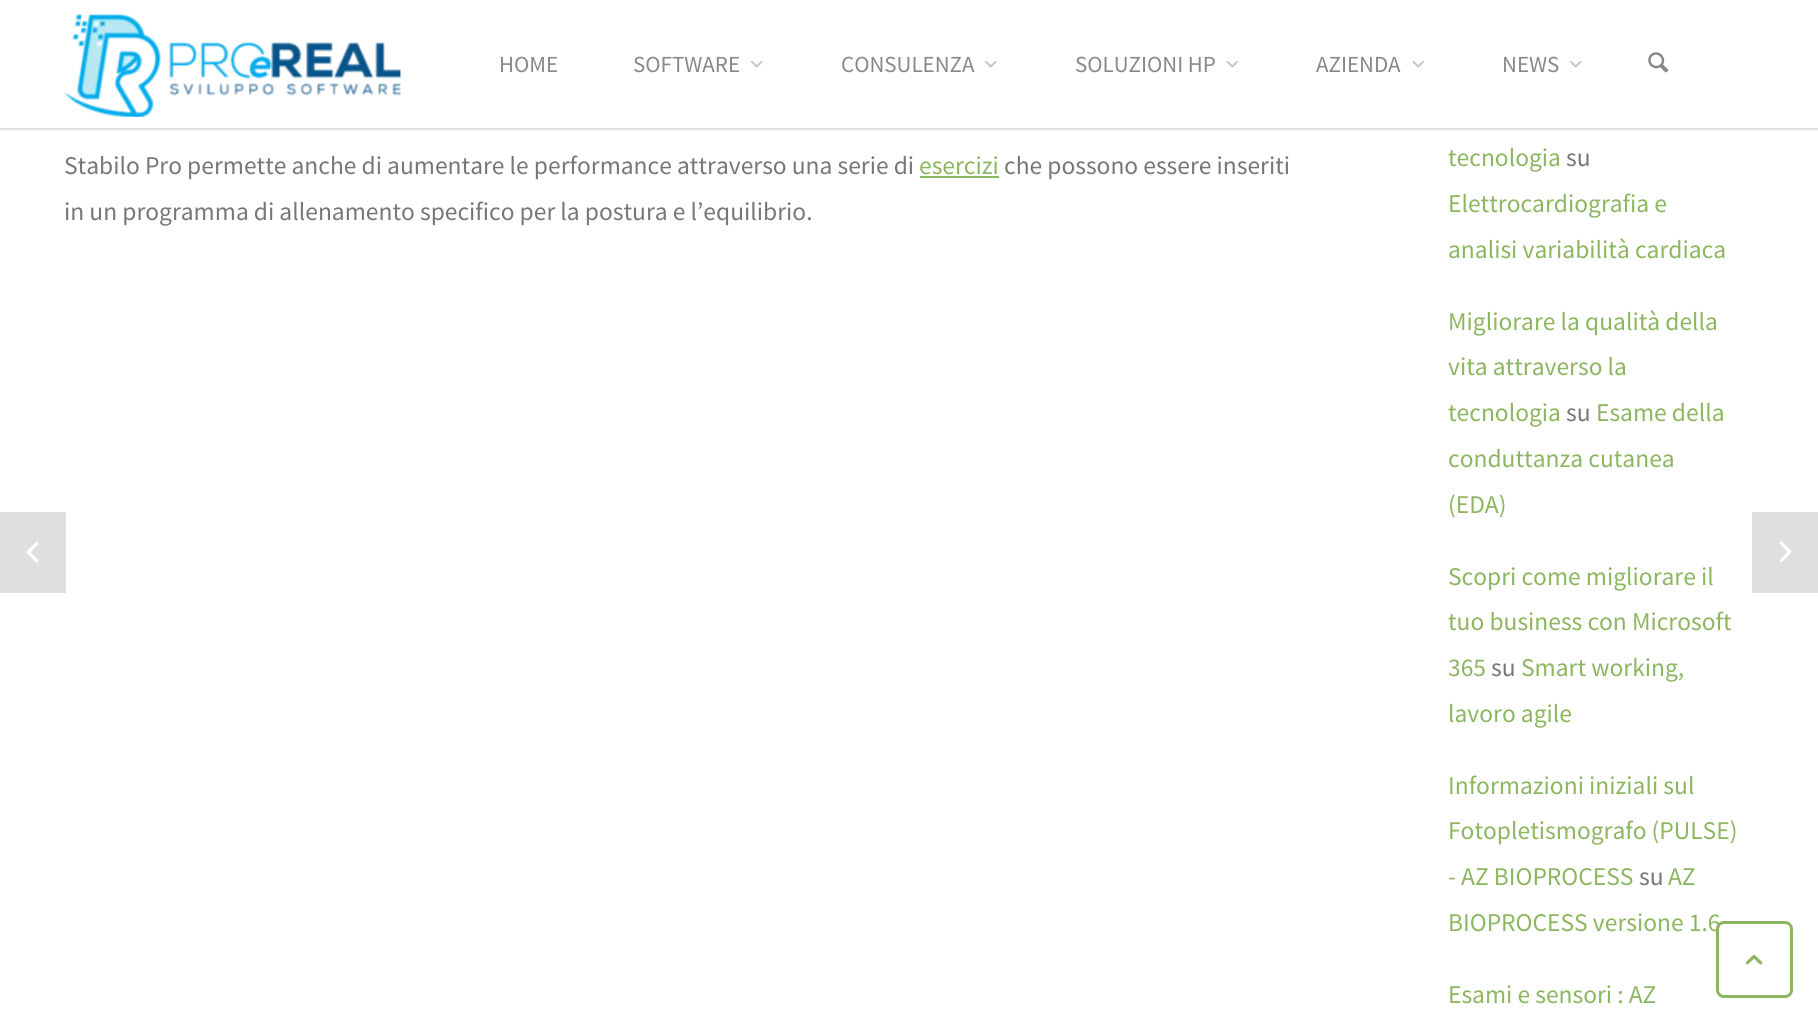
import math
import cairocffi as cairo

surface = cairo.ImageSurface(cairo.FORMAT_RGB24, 1818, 1023)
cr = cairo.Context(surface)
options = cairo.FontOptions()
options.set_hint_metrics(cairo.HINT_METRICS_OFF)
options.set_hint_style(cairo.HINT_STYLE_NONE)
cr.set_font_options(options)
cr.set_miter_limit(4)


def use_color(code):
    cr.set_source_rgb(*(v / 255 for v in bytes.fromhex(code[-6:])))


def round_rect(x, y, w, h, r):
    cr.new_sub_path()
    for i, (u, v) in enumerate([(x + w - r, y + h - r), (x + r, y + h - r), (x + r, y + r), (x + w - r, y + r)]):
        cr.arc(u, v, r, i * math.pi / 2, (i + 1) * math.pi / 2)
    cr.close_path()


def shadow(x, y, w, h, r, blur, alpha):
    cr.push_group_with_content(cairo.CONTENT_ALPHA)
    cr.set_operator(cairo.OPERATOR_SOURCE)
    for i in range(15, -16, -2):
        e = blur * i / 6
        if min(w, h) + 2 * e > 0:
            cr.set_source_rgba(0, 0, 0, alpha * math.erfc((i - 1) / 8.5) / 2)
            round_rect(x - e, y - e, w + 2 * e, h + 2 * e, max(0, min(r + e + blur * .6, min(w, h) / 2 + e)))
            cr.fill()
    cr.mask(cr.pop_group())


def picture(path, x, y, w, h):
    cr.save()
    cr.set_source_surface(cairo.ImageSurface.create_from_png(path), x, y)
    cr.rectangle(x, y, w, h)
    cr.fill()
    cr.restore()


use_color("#ffffff")
cr.paint()
use_color("#000000")
shadow(0, 0, 1818, 128, 0, 2, 0.2)
shadow(0, 0, 1818, 128, 0, 2, 0.2)
use_color("#ffffff")
cr.rectangle(0, 0, 1818, 128)
cr.fill()
picture("img1.png", 64, 14, 337, 103)
cr.select_font_face("Source Sans Pro")
cr.set_font_size(23)
use_color("#888888")
cr.move_to(499, 72)
cr.show_text("HOME")
cr.move_to(633, 72)
cr.show_text("SOFTWARE")
picture("img2.png", 751, 61, 12, 7)
cr.move_to(841, 72)
cr.show_text("CONSULENZA")
picture("img2.png", 985, 61, 12, 7)
cr.move_to(1075, 72)
cr.show_text("SOLUZIONI HP")
picture("img3.png", 1226, 61, 12, 7)
cr.move_to(1316, 72)
cr.show_text("AZIENDA")
picture("img3.png", 1412, 61, 12, 7)
cr.move_to(1502, 72)
cr.show_text("NEWS")
picture("img2.png", 1570, 61, 12, 7)
picture("img4.png", 1648, 52, 21, 21)
cr.set_font_size(25.5)
use_color("#777777")
cr.move_to(64, 174)
cr.show_text("Stabilo Pro permette anche di aumentare le performance attraverso una serie di")
use_color("#8cb65f")
cr.move_to(919, 174)
cr.show_text("esercizi")
cr.rectangle(920, 176, 79, 2)
cr.fill()
use_color("#777777")
cr.move_to(1004, 174)
cr.show_text("che possono essere inseriti")
cr.move_to(64, 220)
cr.show_text("in un programma di allenamento specifico per la postura e l’equilibrio.")
use_color("#8cb65f")
cr.move_to(1448, 166)
cr.show_text("tecnologia")
use_color("#777777")
cr.move_to(1566, 166)
cr.show_text("su")
use_color("#8cb65f")
cr.move_to(1448, 212)
cr.show_text("Elettrocardiografia e")
cr.move_to(1448, 258)
cr.show_text("analisi variabilità cardiaca")
cr.move_to(1448, 330)
cr.show_text("Migliorare la qualità della")
cr.move_to(1448, 375)
cr.show_text("vita attraverso la")
cr.move_to(1448, 421)
cr.show_text("tecnologia")
use_color("#777777")
cr.move_to(1566, 421)
cr.show_text("su")
use_color("#8cb65f")
cr.move_to(1596, 421)
cr.show_text("Esame della")
cr.move_to(1448, 467)
cr.show_text("conduttanza cutanea")
cr.move_to(1448, 513)
cr.show_text("(EDA)")
cr.move_to(1448, 585)
cr.show_text("Scopri come migliorare il")
cr.move_to(1448, 630)
cr.show_text("tuo business con Microsoft")
cr.move_to(1448, 676)
cr.show_text("365")
use_color("#777777")
cr.move_to(1491, 676)
cr.show_text("su")
use_color("#8cb65f")
cr.move_to(1521, 676)
cr.show_text("Smart working,")
cr.move_to(1448, 722)
cr.show_text("lavoro agile")
cr.move_to(1448, 794)
cr.show_text("Informazioni iniziali sul")
cr.move_to(1448, 839)
cr.show_text("Fotopletismografo (PULSE)")
cr.move_to(1448, 885)
cr.show_text("- AZ BIOPROCESS")
use_color("#777777")
cr.move_to(1639, 885)
cr.show_text("su")
use_color("#8cb65f")
cr.move_to(1668, 885)
cr.show_text("AZ")
cr.move_to(1448, 931)
cr.show_text("BIOPROCESS versione 1.6")
cr.move_to(1448, 1003)
cr.show_text("Esami e sensori : AZ")
use_color("#dfdfdf")
cr.rectangle(0, 512, 66, 81)
cr.fill()
picture("img5.png", 26, 542, 13, 21)
cr.rectangle(1752, 512, 66, 81)
cr.fill()
picture("img6.png", 1779, 541, 13, 21)
cr.set_source_rgba(1, 1, 1, 0.25)
round_rect(1717.5, 922.5, 74, 74, 6.5)
cr.fill_preserve()
use_color("#8cb65f")
cr.set_line_width(3)
cr.stroke()
picture("img7.png", 1745, 954, 18, 11)
surface.write_to_png("result.png")
